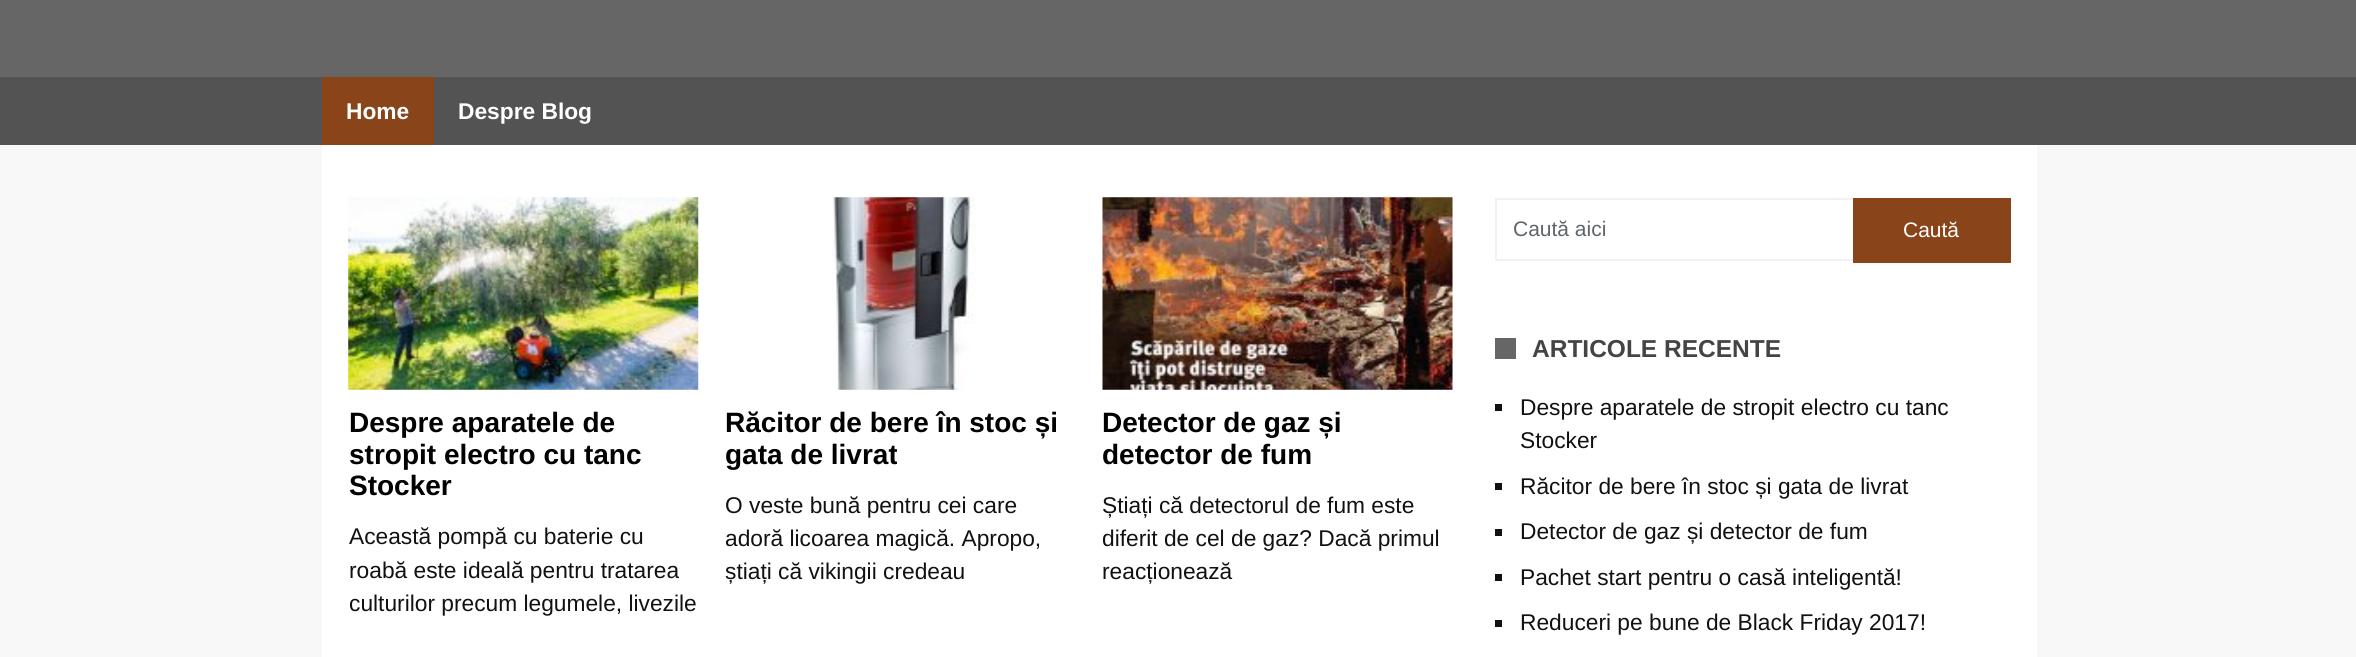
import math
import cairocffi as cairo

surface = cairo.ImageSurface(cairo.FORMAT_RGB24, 2356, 657)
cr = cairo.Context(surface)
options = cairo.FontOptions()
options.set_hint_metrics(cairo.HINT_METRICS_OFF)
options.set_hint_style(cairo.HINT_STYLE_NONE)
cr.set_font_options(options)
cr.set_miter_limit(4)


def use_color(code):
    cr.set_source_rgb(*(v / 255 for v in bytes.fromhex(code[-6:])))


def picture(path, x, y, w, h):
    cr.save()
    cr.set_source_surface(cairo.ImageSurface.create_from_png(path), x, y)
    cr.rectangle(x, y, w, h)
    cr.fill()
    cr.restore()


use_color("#f9f8f8")
cr.paint()
use_color("#666666")
cr.rectangle(0, 0, 2356, 77)
cr.fill()
use_color("#535353")
cr.rectangle(0, 77, 2356, 68)
cr.fill()
use_color("#89441a")
cr.rectangle(322, 77, 112, 68)
cr.fill()
cr.select_font_face("Liberation Sans", cairo.FONT_SLANT_NORMAL, cairo.FONT_WEIGHT_BOLD)
cr.set_font_size(22.75)
use_color("#ffffff")
cr.move_to(346, 119)
cr.show_text("Home")
cr.move_to(458, 119)
cr.show_text("Despre Blog")
cr.rectangle(322, 145, 1715, 512)
cr.fill()
picture("img1.png", 348, 197, 351, 193)
cr.set_font_size(28)
use_color("#000000")
cr.move_to(349, 432)
cr.show_text("Despre aparatele de")
cr.move_to(349, 464)
cr.show_text("stropit electro cu tanc")
cr.move_to(349, 495)
cr.show_text("Stocker")
cr.select_font_face("Liberation Sans")
cr.set_font_size(22.75)
use_color("#111112")
cr.move_to(349, 544)
cr.show_text("Această pompă cu baterie cu")
cr.move_to(349, 578)
cr.show_text("roabă este ideală pentru tratarea")
cr.move_to(349, 611)
cr.show_text("culturilor precum legumele, livezile")
picture("img2.png", 832, 197, 145, 193)
cr.select_font_face("Liberation Sans", cairo.FONT_SLANT_NORMAL, cairo.FONT_WEIGHT_BOLD)
cr.set_font_size(28)
use_color("#000000")
cr.move_to(725, 432)
cr.show_text("Răcitor de bere în stoc și")
cr.move_to(725, 464)
cr.show_text("gata de livrat")
cr.select_font_face("Liberation Sans")
cr.set_font_size(22.75)
use_color("#111112")
cr.move_to(725, 513)
cr.show_text("O veste bună pentru cei care")
cr.move_to(725, 546)
cr.show_text("adoră licoarea magică. Apropo,")
cr.move_to(725, 579)
cr.show_text("știați că vikingii credeau")
picture("img3.png", 1102, 197, 351, 193)
cr.select_font_face("Liberation Sans", cairo.FONT_SLANT_NORMAL, cairo.FONT_WEIGHT_BOLD)
cr.set_font_size(28)
use_color("#000000")
cr.move_to(1102, 432)
cr.show_text("Detector de gaz și")
cr.move_to(1102, 464)
cr.show_text("detector de fum")
cr.select_font_face("Liberation Sans")
cr.set_font_size(22.75)
use_color("#111112")
cr.move_to(1102, 513)
cr.show_text("Știați că detectorul de fum este")
cr.save()
cr.rectangle(1103, 488, 350, 100)
cr.clip()
cr.move_to(1102, 546)
cr.show_text("diferit de cel de gaz? Dacă primul")
cr.restore()
cr.move_to(1102, 579)
cr.show_text("reacționează")
use_color("#f1f1f1")
cr.rectangle(1495, 198, 358, 2)
cr.fill()
cr.rectangle(1495, 259, 358, 2)
cr.fill()
cr.rectangle(1495, 198, 2, 63)
cr.fill()
cr.set_font_size(21)
use_color("#5e656d")
cr.move_to(1513, 236)
cr.show_text("Caută aici")
use_color("#89441a")
cr.rectangle(1853, 198, 158, 65)
cr.fill()
use_color("#ffffff")
cr.move_to(1903, 237)
cr.show_text("Caută")
use_color("#666666")
cr.rectangle(1495, 338, 21, 21)
cr.fill()
cr.select_font_face("Liberation Sans", cairo.FONT_SLANT_NORMAL, cairo.FONT_WEIGHT_BOLD)
cr.set_font_size(24.5)
use_color("#444444")
cr.move_to(1532, 357)
cr.show_text("ARTICOLE RECENTE")
use_color("#111112")
cr.rectangle(1495, 404, 7, 7)
cr.fill()
cr.select_font_face("Liberation Sans")
cr.set_font_size(22.75)
cr.move_to(1520, 415)
cr.show_text("Despre aparatele de stropit electro cu tanc")
cr.move_to(1520, 448)
cr.show_text("Stocker")
cr.rectangle(1495, 483, 7, 7)
cr.fill()
cr.move_to(1520, 494)
cr.show_text("Răcitor de bere în stoc și gata de livrat")
cr.rectangle(1495, 529, 7, 7)
cr.fill()
cr.move_to(1520, 539)
cr.show_text("Detector de gaz și detector de fum")
cr.rectangle(1495, 574, 7, 7)
cr.fill()
cr.move_to(1520, 585)
cr.show_text("Pachet start pentru o casă inteligentă!")
cr.rectangle(1495, 620, 7, 7)
cr.fill()
cr.move_to(1520, 630)
cr.show_text("Reduceri pe bune de Black Friday 2017!")
surface.write_to_png("result.png")
